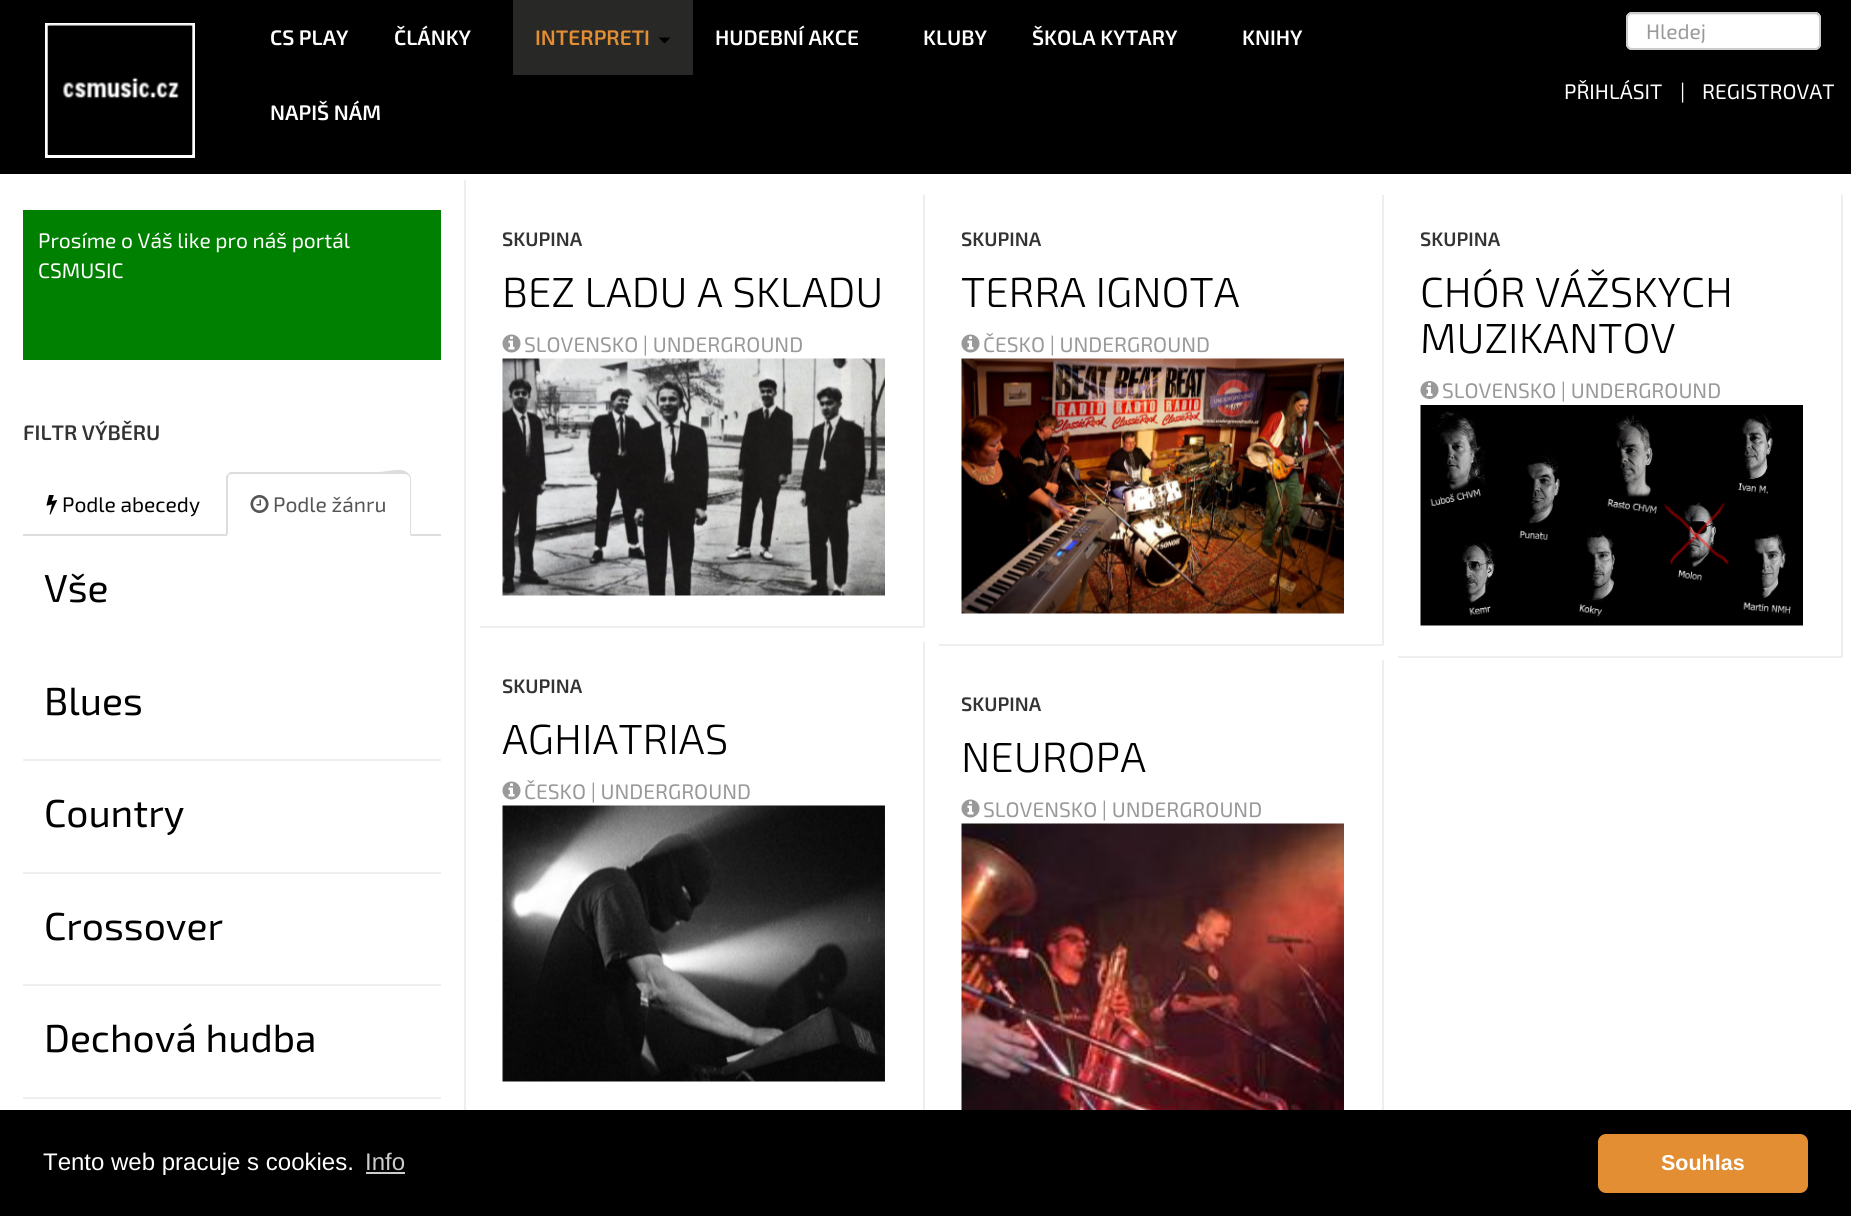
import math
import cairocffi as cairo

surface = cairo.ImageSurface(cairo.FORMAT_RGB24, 1851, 1216)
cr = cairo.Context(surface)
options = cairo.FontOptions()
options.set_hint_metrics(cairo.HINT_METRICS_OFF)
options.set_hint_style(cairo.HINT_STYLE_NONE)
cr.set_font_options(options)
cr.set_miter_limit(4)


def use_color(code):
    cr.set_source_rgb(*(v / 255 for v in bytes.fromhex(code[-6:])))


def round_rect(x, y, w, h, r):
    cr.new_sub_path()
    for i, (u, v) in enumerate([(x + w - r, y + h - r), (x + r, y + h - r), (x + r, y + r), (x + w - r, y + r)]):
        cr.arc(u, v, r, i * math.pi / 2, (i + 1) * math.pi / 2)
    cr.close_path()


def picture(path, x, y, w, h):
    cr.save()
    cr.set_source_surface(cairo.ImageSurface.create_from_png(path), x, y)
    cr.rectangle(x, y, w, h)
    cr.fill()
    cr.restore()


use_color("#ffffff")
cr.paint()
use_color("#000000")
cr.rectangle(0, 0, 1851, 174)
cr.fill()
cr.rectangle(46.5, 24.5, 147, 132)
use_color("#ffffff")
cr.set_line_width(3)
cr.stroke()
picture("img1.png", 47, 24, 146, 131)
cr.select_font_face("Exo 2 SemiBold")
cr.set_font_size(21)
cr.move_to(270, 45)
cr.show_text("CS PLAY")
cr.move_to(394, 45)
cr.show_text("ČLÁNKY")
use_color("#282826")
cr.rectangle(513, 0, 180, 75)
cr.fill()
use_color("#e38e33")
cr.move_to(535, 45)
cr.show_text("INTERPRETI")
use_color("#000000")
cr.new_path()
cr.move_to(658.5, 37.5)
cr.line_to(670.5, 37.5)
cr.line_to(664.5, 43.5)
cr.close_path()
cr.fill()
use_color("#ffffff")
cr.move_to(715, 45)
cr.show_text("HUDEBNÍ AKCE")
cr.move_to(923, 45)
cr.show_text("KLUBY")
cr.move_to(1032, 45)
cr.show_text("ŠKOLA KYTARY")
cr.move_to(1242, 45)
cr.show_text("KNIHY")
cr.move_to(270, 120)
cr.show_text("NAPIŠ NÁM")
round_rect(1626, 12, 195, 38, 6)
cr.fill()
use_color("#ececec")
cr.new_path()
cr.move_to(1632, 15)
cr.line_to(1815, 15)
cr.curve_to(1817, 15, 1820, 17, 1820, 20)
cr.line_to(1820, 19)
cr.curve_to(1820, 16, 1818, 14, 1815, 14)
cr.line_to(1633, 14)
cr.curve_to(1630, 14, 1628, 16, 1628, 19)
cr.line_to(1628, 20)
cr.curve_to(1628, 17, 1630, 15, 1632, 15)
cr.close_path()
cr.fill()
round_rect(1627, 13, 193, 36, 5)
use_color("#cccccc")
cr.set_line_width(2)
cr.stroke()
cr.select_font_face("Exo 2")
use_color("#999999")
cr.move_to(1646, 39)
cr.show_text("Hledej")
use_color("#ffffff")
cr.move_to(1564, 99)
cr.show_text("PŘIHLÁSIT")
cr.move_to(1680, 99)
cr.show_text("|")
cr.move_to(1702, 99)
cr.show_text("REGISTROVAT")
use_color("#008000")
cr.rectangle(23, 210, 418, 150)
cr.fill()
use_color("#ffffff")
cr.move_to(38, 248)
cr.show_text("Prosíme o Váš like pro náš portál")
cr.move_to(38, 278)
cr.show_text("CSMUSIC")
cr.select_font_face("Exo 2 SemiBold")
use_color("#333333")
cr.move_to(23, 440)
cr.show_text("FILTR VÝBĚRU")
use_color("#dddddd")
cr.rectangle(23, 534, 418, 2)
cr.fill()
picture("img2.png", 46, 495, 11, 20)
cr.select_font_face("Exo 2")
use_color("#000000")
cr.move_to(62, 512)
cr.show_text("Podle abecedy")
use_color("#ffffff")
cr.new_path()
cr.move_to(233, 473)
cr.line_to(405, 473)
cr.curve_to(408.5, 473, 411, 475.5, 411, 479)
cr.line_to(411, 536)
cr.line_to(227, 536)
cr.line_to(227, 479)
cr.curve_to(227, 475.5, 229.5, 473, 233, 473)
cr.close_path()
cr.fill()
use_color("#dddddd")
cr.new_path()
cr.move_to(232, 474)
cr.line_to(229, 475)
cr.line_to(228, 474)
cr.line_to(230, 472)
cr.line_to(378, 472)
cr.curve_to(388, 472, 402, 466, 409, 474)
cr.line_to(408, 475)
cr.line_to(405, 474)
cr.close_path()
cr.fill()
cr.new_path()
cr.move_to(411, 536)
cr.line_to(411, 478)
cr.curve_to(411, 477, 410, 475, 409, 474)
cr.line_to(408, 475)
cr.line_to(410, 478)
cr.line_to(410, 534)
cr.close_path()
cr.fill()
cr.new_path()
cr.move_to(226, 536)
cr.line_to(226, 476)
cr.line_to(228, 474)
cr.line_to(229, 475)
cr.line_to(228, 478)
cr.line_to(228, 534)
cr.close_path()
cr.fill()
picture("img3.png", 250, 495, 19, 18)
use_color("#555555")
cr.move_to(273, 512)
cr.show_text("Podle žánru")
cr.set_font_size(39)
use_color("#000000")
cr.move_to(44, 602)
cr.show_text("Vše")
use_color("#f0efef")
cr.rectangle(23, 759, 418, 2)
cr.fill()
use_color("#000000")
cr.move_to(44, 715)
cr.show_text("Blues")
use_color("#f0efef")
cr.rectangle(23, 872, 418, 2)
cr.fill()
use_color("#000000")
cr.move_to(44, 827)
cr.show_text("Country")
use_color("#f0efef")
cr.rectangle(23, 984, 418, 2)
cr.fill()
use_color("#000000")
cr.move_to(44, 940)
cr.show_text("Crossover")
use_color("#f0efef")
cr.rectangle(23, 1097, 418, 2)
cr.fill()
use_color("#000000")
cr.move_to(44, 1052)
cr.show_text("Dechová hudba")
use_color("#eeeeee")
cr.rectangle(464, 180, 2, 930)
cr.fill()
cr.rectangle(923, 195, 2, 432)
cr.fill()
cr.rectangle(480, 626, 444, 2)
cr.fill()
cr.select_font_face("Exo 2 SemiBold")
cr.set_font_size(19.5)
use_color("#333333")
cr.move_to(502, 246)
cr.show_text("SKUPINA")
cr.select_font_face("Exo 2 Light")
cr.set_font_size(42)
use_color("#000000")
cr.move_to(502, 307)
cr.show_text("BEZ LADU A SKLADU")
picture("img4.png", 502, 334, 19, 19)
cr.select_font_face("Exo 2")
cr.set_font_size(21)
use_color("#999999")
cr.move_to(524, 352)
cr.show_text("SLOVENSKO | UNDERGROUND")
picture("img5.png", 502, 358, 383, 238)
use_color("#eeeeee")
cr.rectangle(1382, 195, 2, 450)
cr.fill()
cr.rectangle(939, 644, 444, 2)
cr.fill()
cr.select_font_face("Exo 2 SemiBold")
cr.set_font_size(19.5)
use_color("#333333")
cr.move_to(961, 246)
cr.show_text("SKUPINA")
cr.select_font_face("Exo 2 Light")
cr.set_font_size(42)
use_color("#000000")
cr.move_to(961, 307)
cr.show_text("TERRA IGNOTA")
picture("img4.png", 961, 334, 19, 19)
cr.select_font_face("Exo 2")
cr.set_font_size(21)
use_color("#999999")
cr.move_to(983, 352)
cr.show_text("ČESKO | UNDERGROUND")
picture("img6.png", 961, 358, 383, 256)
use_color("#eeeeee")
cr.rectangle(1841, 195, 2, 462)
cr.fill()
cr.rectangle(1398, 656, 444, 2)
cr.fill()
cr.select_font_face("Exo 2 SemiBold")
cr.set_font_size(19.5)
use_color("#333333")
cr.move_to(1420, 246)
cr.show_text("SKUPINA")
cr.select_font_face("Exo 2 Light")
cr.set_font_size(42)
use_color("#000000")
cr.move_to(1420, 307)
cr.show_text("CHÓR VÁŽSKYCH")
cr.move_to(1420, 353)
cr.show_text("MUZIKANTOV")
picture("img7.png", 1420, 381, 19, 18)
cr.select_font_face("Exo 2")
cr.set_font_size(21)
use_color("#999999")
cr.move_to(1442, 398)
cr.show_text("SLOVENSKO | UNDERGROUND")
picture("img8.png", 1420, 405, 383, 221)
use_color("#eeeeee")
cr.rectangle(923, 642, 2, 471)
cr.fill()
cr.select_font_face("Exo 2 SemiBold")
cr.set_font_size(19.5)
use_color("#333333")
cr.move_to(502, 693)
cr.show_text("SKUPINA")
cr.select_font_face("Exo 2 Light")
cr.set_font_size(42)
use_color("#000000")
cr.move_to(502, 754)
cr.show_text("AGHIATRIAS")
picture("img4.png", 502, 781, 19, 19)
cr.select_font_face("Exo 2")
cr.set_font_size(21)
use_color("#999999")
cr.move_to(524, 799)
cr.show_text("ČESKO | UNDERGROUND")
picture("img9.png", 502, 805, 383, 277)
use_color("#eeeeee")
cr.rectangle(1382, 660, 2, 450)
cr.fill()
cr.select_font_face("Exo 2 SemiBold")
cr.set_font_size(19.5)
use_color("#333333")
cr.move_to(961, 711)
cr.show_text("SKUPINA")
cr.select_font_face("Exo 2 Light")
cr.set_font_size(42)
use_color("#000000")
cr.move_to(961, 772)
cr.show_text("NEUROPA")
picture("img4.png", 961, 799, 19, 19)
cr.select_font_face("Exo 2")
cr.set_font_size(21)
use_color("#999999")
cr.move_to(983, 817)
cr.show_text("SLOVENSKO | UNDERGROUND")
picture("img10.png", 961, 823, 383, 287)
use_color("#000000")
cr.rectangle(0, 1110, 1851, 106)
cr.fill()
cr.select_font_face("Liberation Sans")
cr.set_font_size(24)
use_color("#ffffff")
cr.move_to(43, 1170)
cr.show_text("Tento web pracuje s cookies.")
use_color("#cccccc")
cr.move_to(365, 1170)
cr.show_text("Info")
cr.rectangle(366, 1172, 39, 2)
cr.fill()
use_color("#e38e33")
round_rect(1598, 1134, 210, 59, 8)
cr.fill()
cr.select_font_face("Liberation Sans", cairo.FONT_SLANT_NORMAL, cairo.FONT_WEIGHT_BOLD)
cr.set_font_size(21.5)
use_color("#ffffff")
cr.move_to(1661, 1170)
cr.show_text("Souhlas")
surface.write_to_png("result.png")
